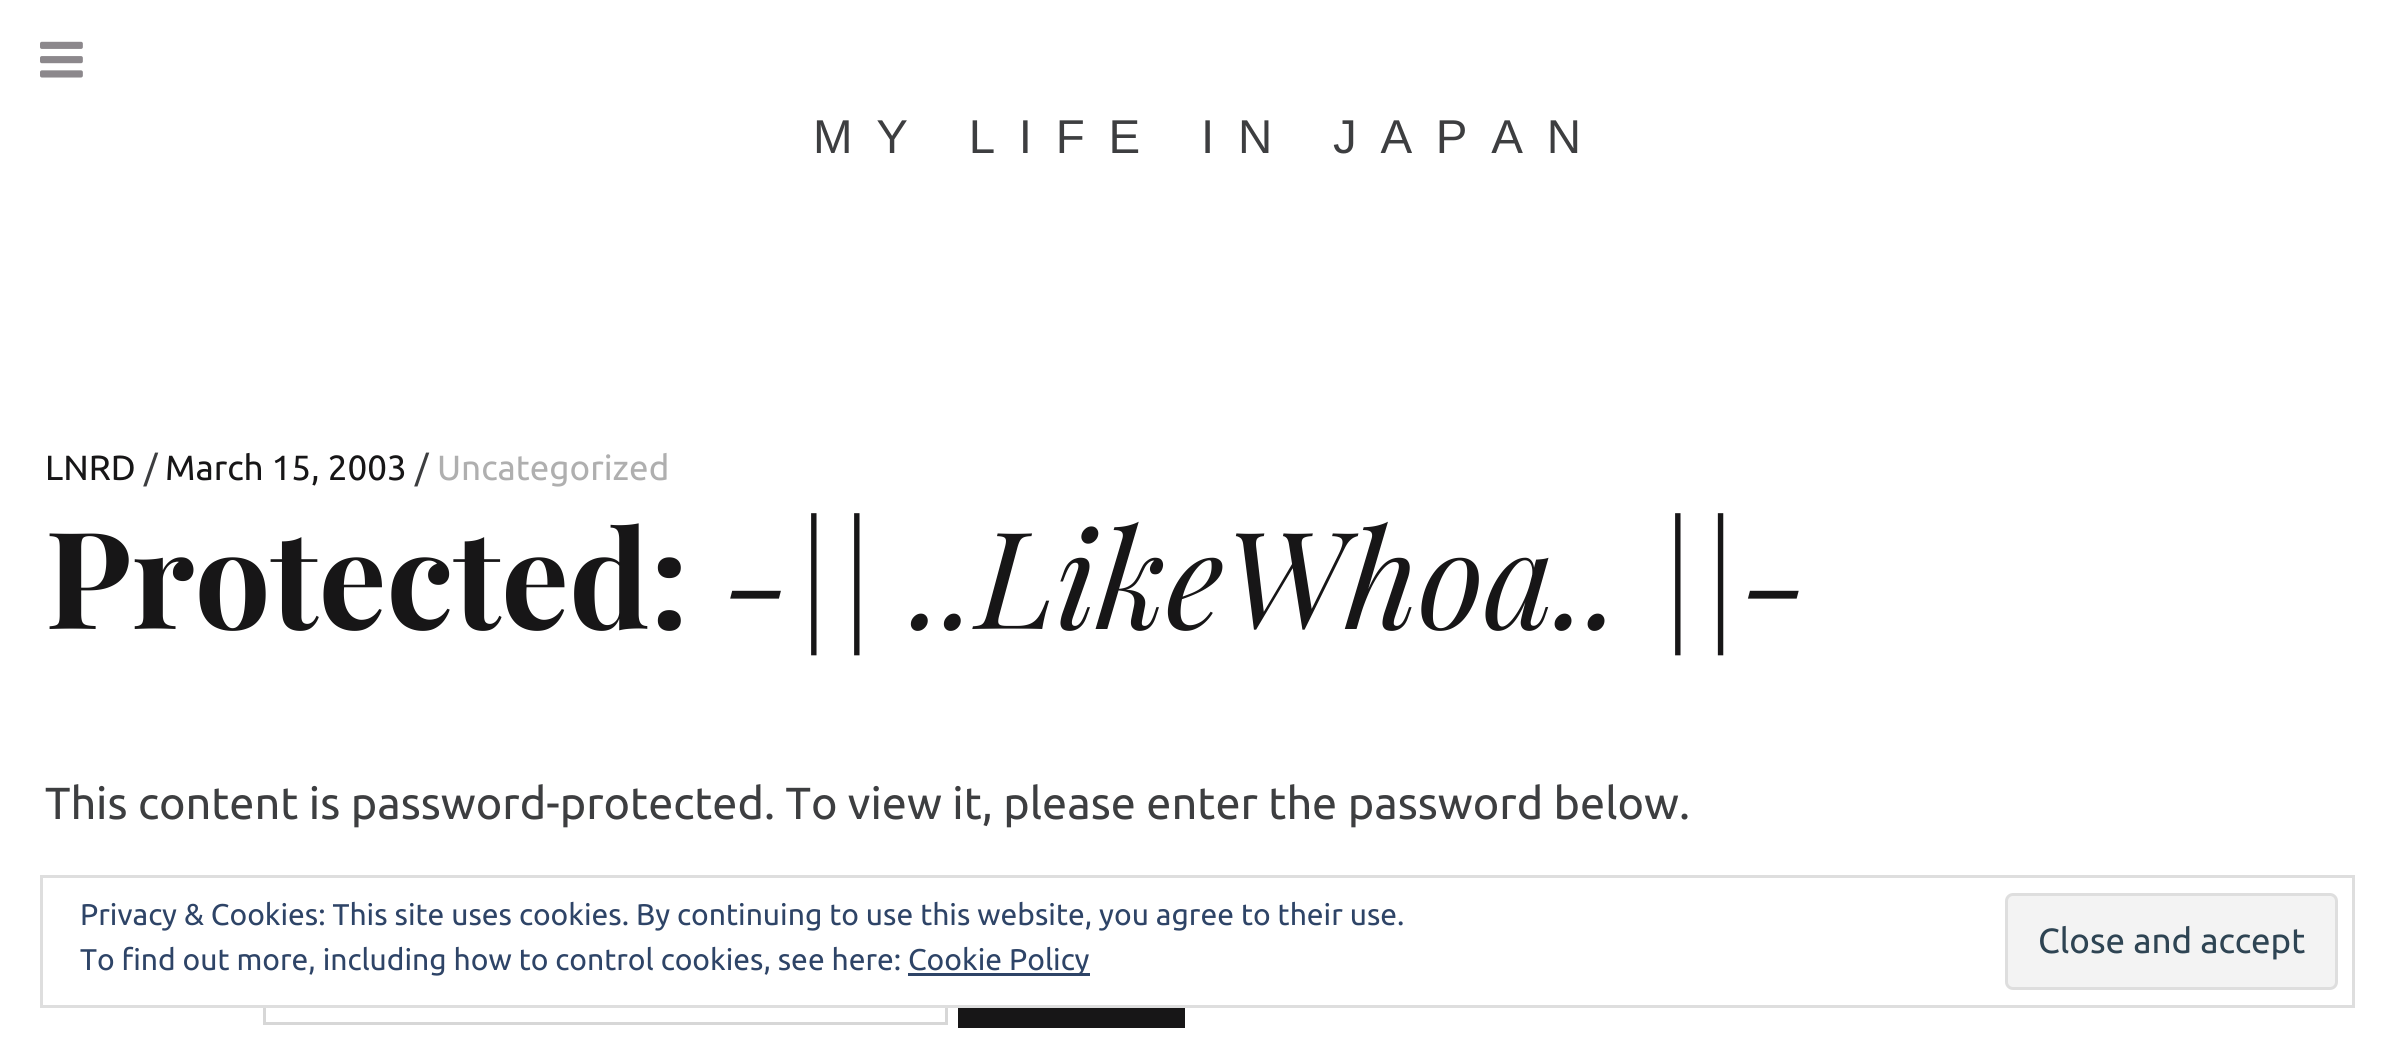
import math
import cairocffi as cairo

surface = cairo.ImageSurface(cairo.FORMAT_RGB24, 2394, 1046)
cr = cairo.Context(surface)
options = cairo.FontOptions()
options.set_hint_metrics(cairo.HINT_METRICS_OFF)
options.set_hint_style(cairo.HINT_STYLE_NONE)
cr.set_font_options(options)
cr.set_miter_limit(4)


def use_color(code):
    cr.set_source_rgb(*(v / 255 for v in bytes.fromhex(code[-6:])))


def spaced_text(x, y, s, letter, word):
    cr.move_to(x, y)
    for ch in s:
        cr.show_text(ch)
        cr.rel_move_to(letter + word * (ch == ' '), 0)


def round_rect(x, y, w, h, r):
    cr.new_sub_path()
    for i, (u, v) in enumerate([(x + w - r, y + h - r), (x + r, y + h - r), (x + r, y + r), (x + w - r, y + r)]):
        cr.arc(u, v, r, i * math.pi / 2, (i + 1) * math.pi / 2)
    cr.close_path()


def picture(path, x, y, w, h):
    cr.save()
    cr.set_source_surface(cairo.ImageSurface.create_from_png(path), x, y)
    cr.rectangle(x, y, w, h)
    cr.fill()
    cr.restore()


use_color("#ffffff")
cr.paint()
picture("img1.png", 40, 41, 43, 37)
cr.select_font_face("Liberation Sans")
cr.set_font_size(47.5)
use_color("#3d3e40")
spaced_text(813, 153, "MY LIFE IN JAPAN", 23.75, 0)
cr.select_font_face("Ubuntu")
cr.set_font_size(35)
use_color("#171617")
cr.move_to(45, 480)
cr.show_text("LNRD")
use_color("#3d3e40")
cr.move_to(144, 480)
cr.show_text("/")
use_color("#171617")
cr.move_to(165, 480)
cr.show_text("March 15, 2003")
use_color("#3d3e40")
cr.move_to(415, 480)
cr.show_text("/")
use_color("#afafaf")
cr.move_to(437, 480)
cr.show_text("Uncategorized")
cr.select_font_face("Playfair Display", cairo.FONT_SLANT_NORMAL, cairo.FONT_WEIGHT_BOLD)
cr.set_font_size(135)
use_color("#171617")
cr.move_to(45, 629)
cr.show_text("Protected:")
cr.select_font_face("Playfair Display", cairo.FONT_SLANT_ITALIC)
cr.move_to(723, 629)
cr.show_text("-|| ..LikeWhoa.. ||-")
cr.select_font_face("Ubuntu")
cr.set_font_size(45)
use_color("#3d3e40")
cr.move_to(45, 819)
cr.show_text("This content is password-protected. To view it, please enter the password below.")
cr.rectangle(264.5, 914.5, 682, 109)
use_color("#d7d7d7")
cr.set_line_width(3)
cr.stroke()
use_color("#171617")
cr.rectangle(958, 1008, 227, 20)
cr.fill()
use_color("#ffffff")
cr.rectangle(263, 913, 685, 92)
cr.fill()
cr.rectangle(41.5, 876.5, 2312, 130)
use_color("#dedede")
cr.stroke()
cr.set_font_size(30)
use_color("#2e4467")
cr.move_to(80, 925)
cr.show_text("Privacy & Cookies: This site uses cookies. By continuing to use this website, you agree to their use.")
cr.move_to(80, 970)
cr.show_text("To find out more, including how to control cookies, see here:")
cr.rectangle(908, 973, 182, 3)
cr.fill()
cr.move_to(908, 970)
cr.show_text("Cookie Policy")
use_color("#f3f3f3")
round_rect(2006.5, 894.5, 330, 94, 6.5)
cr.fill_preserve()
use_color("#dedede")
cr.stroke()
cr.set_font_size(35)
use_color("#2e4453")
cr.move_to(2038, 953)
cr.show_text("Close and accept")
surface.write_to_png("result.png")
